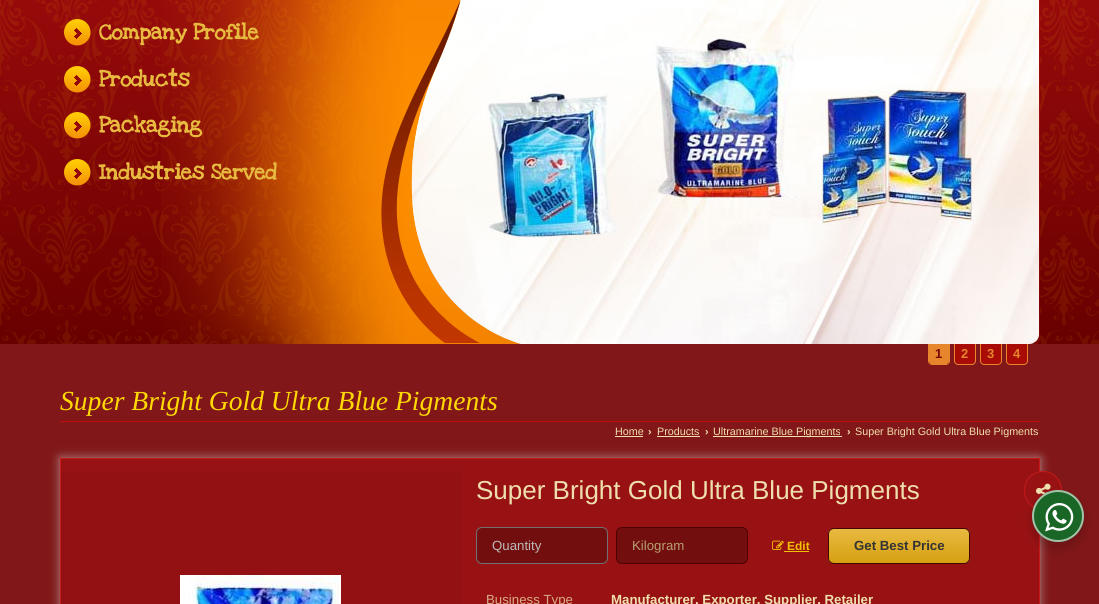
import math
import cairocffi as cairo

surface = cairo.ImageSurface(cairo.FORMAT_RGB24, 1099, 604)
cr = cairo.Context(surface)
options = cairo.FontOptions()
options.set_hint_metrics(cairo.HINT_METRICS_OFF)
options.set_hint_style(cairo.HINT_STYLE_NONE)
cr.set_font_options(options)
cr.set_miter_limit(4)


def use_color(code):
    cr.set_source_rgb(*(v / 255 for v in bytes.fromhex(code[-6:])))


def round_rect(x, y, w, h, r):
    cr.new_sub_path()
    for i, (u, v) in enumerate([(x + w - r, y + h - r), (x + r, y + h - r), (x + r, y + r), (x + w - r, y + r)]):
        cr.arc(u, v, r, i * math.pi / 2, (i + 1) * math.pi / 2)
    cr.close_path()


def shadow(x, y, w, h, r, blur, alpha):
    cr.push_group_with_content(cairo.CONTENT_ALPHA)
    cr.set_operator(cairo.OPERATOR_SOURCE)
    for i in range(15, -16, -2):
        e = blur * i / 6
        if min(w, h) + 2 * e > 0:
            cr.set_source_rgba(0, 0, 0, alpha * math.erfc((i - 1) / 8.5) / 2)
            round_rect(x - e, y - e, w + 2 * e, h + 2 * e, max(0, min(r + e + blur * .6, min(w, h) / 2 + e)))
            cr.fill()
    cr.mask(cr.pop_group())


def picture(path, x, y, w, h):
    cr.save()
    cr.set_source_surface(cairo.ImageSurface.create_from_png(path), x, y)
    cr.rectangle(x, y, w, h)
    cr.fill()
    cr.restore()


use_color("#811718")
cr.paint()
picture("img1.png", 0, 0, 1099, 344)
picture("img2.png", 161, 0, 220, 344)
picture("img3.png", 64, 19, 27, 27)
cr.select_font_face("Love Ya Like A Sister", cairo.FONT_SLANT_NORMAL, cairo.FONT_WEIGHT_BOLD)
cr.set_font_size(22)
use_color("#e8ba40")
cr.move_to(99, 39)
cr.show_text("Company Profile")
picture("img4.png", 64, 66, 27, 27)
cr.move_to(99, 86)
cr.show_text("Products")
picture("img5.png", 64, 112, 27, 27)
cr.move_to(99, 132)
cr.show_text("Packaging")
picture("img6.png", 64, 159, 27, 27)
cr.move_to(99, 179)
cr.show_text("Industries Served")
picture("img8.png", 411, 0, 629, 344)
picture("img7.png", 381, 0, 140, 344)
use_color("#e6852c")
cr.new_path()
cr.move_to(929, 344)
cr.line_to(949, 344)
cr.line_to(949, 361)
cr.curve_to(949, 362.5, 947.5, 364, 946, 364)
cr.line_to(932, 364)
cr.curve_to(930.5, 364, 929, 362.5, 929, 361)
cr.close_path()
cr.fill()
cr.set_fill_rule(cairo.FILL_RULE_EVEN_ODD)
cr.new_path()
cr.move_to(928, 344)
cr.line_to(950, 344)
cr.line_to(950, 361)
cr.curve_to(950, 363, 948, 365, 946, 365)
cr.line_to(932, 365)
cr.curve_to(930, 365, 928, 363, 928, 361)
cr.close_path()
cr.move_to(929, 344)
cr.line_to(949, 344)
cr.line_to(949, 361)
cr.curve_to(949, 362.5, 947.5, 364, 946, 364)
cr.line_to(932, 364)
cr.curve_to(930.5, 364, 929, 362.5, 929, 361)
cr.close_path()
cr.fill()
cr.select_font_face("Liberation Sans", cairo.FONT_SLANT_NORMAL, cairo.FONT_WEIGHT_BOLD)
cr.set_font_size(13)
use_color("#7a0503")
cr.move_to(935, 358)
cr.show_text("1")
use_color("#a90c07")
cr.new_path()
cr.move_to(955, 344)
cr.line_to(975, 344)
cr.line_to(975, 361)
cr.curve_to(975, 362.5, 973.5, 364, 972, 364)
cr.line_to(958, 364)
cr.curve_to(956.5, 364, 955, 362.5, 955, 361)
cr.close_path()
cr.fill()
use_color("#e6852c")
cr.new_path()
cr.move_to(954, 344)
cr.line_to(976, 344)
cr.line_to(976, 361)
cr.curve_to(976, 363, 974, 365, 972, 365)
cr.line_to(958, 365)
cr.curve_to(956, 365, 954, 363, 954, 361)
cr.close_path()
cr.move_to(955, 344)
cr.line_to(975, 344)
cr.line_to(975, 361)
cr.curve_to(975, 362.5, 973.5, 364, 972, 364)
cr.line_to(958, 364)
cr.curve_to(956.5, 364, 955, 362.5, 955, 361)
cr.close_path()
cr.fill()
cr.move_to(961, 358)
cr.show_text("2")
use_color("#a90c07")
cr.new_path()
cr.move_to(981, 344)
cr.line_to(1001, 344)
cr.line_to(1001, 361)
cr.curve_to(1001, 362.5, 999.5, 364, 998, 364)
cr.line_to(984, 364)
cr.curve_to(982.5, 364, 981, 362.5, 981, 361)
cr.close_path()
cr.fill()
use_color("#e6852c")
cr.new_path()
cr.move_to(980, 344)
cr.line_to(1002, 344)
cr.line_to(1002, 361)
cr.curve_to(1002, 363, 1000, 365, 998, 365)
cr.line_to(984, 365)
cr.curve_to(982, 365, 980, 363, 980, 361)
cr.close_path()
cr.move_to(981, 344)
cr.line_to(1001, 344)
cr.line_to(1001, 361)
cr.curve_to(1001, 362.5, 999.5, 364, 998, 364)
cr.line_to(984, 364)
cr.curve_to(982.5, 364, 981, 362.5, 981, 361)
cr.close_path()
cr.fill()
cr.move_to(987, 358)
cr.show_text("3")
use_color("#a90c07")
cr.new_path()
cr.move_to(1007, 344)
cr.line_to(1027, 344)
cr.line_to(1027, 361)
cr.curve_to(1027, 362.5, 1025.5, 364, 1024, 364)
cr.line_to(1010, 364)
cr.curve_to(1008.5, 364, 1007, 362.5, 1007, 361)
cr.close_path()
cr.fill()
use_color("#e6852c")
cr.new_path()
cr.move_to(1006, 344)
cr.line_to(1028, 344)
cr.line_to(1028, 361)
cr.curve_to(1028, 363, 1026, 365, 1024, 365)
cr.line_to(1010, 365)
cr.curve_to(1008, 365, 1006, 363, 1006, 361)
cr.close_path()
cr.move_to(1007, 344)
cr.line_to(1027, 344)
cr.line_to(1027, 361)
cr.curve_to(1027, 362.5, 1025.5, 364, 1024, 364)
cr.line_to(1010, 364)
cr.curve_to(1008.5, 364, 1007, 362.5, 1007, 361)
cr.close_path()
cr.fill()
cr.move_to(1013, 358)
cr.show_text("4")
cr.select_font_face("Liberation Serif", cairo.FONT_SLANT_ITALIC)
cr.set_font_size(27.6)
use_color("#ffd904")
cr.move_to(60, 410)
cr.show_text("Super Bright Gold Ultra Blue Pigments")
use_color("#c30d0d")
cr.rectangle(60, 421, 980, 1)
cr.fill()
cr.select_font_face("Liberation Sans")
cr.set_font_size(10.75)
use_color("#efdfae")
cr.move_to(615, 435)
cr.show_text("Home")
cr.rectangle(615, 436, 28, 1)
cr.fill()
cr.select_font_face("Liberation Sans", cairo.FONT_SLANT_NORMAL, cairo.FONT_WEIGHT_BOLD)
cr.move_to(648, 435)
cr.show_text("›")
cr.select_font_face("Liberation Sans")
cr.move_to(657, 435)
cr.show_text("Products")
cr.rectangle(657, 436, 43, 1)
cr.fill()
cr.select_font_face("Liberation Sans", cairo.FONT_SLANT_NORMAL, cairo.FONT_WEIGHT_BOLD)
cr.move_to(705, 435)
cr.show_text("›")
cr.rectangle(713, 436, 129, 1)
cr.fill()
cr.select_font_face("Liberation Sans")
cr.move_to(713, 435)
cr.show_text("Ultramarine Blue Pigments")
cr.select_font_face("Liberation Sans", cairo.FONT_SLANT_NORMAL, cairo.FONT_WEIGHT_BOLD)
cr.move_to(847, 435)
cr.show_text("›")
cr.select_font_face("Liberation Sans")
cr.move_to(855, 435)
cr.show_text("Super Bright Gold Ultra Blue Pigments")
use_color("#cccccc")
shadow(60, 458, 980, 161, 0, 5, 0.67)
use_color("#981213")
cr.rectangle(60.5, 458.5, 979, 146)
cr.fill_preserve()
use_color("#c5191b")
cr.set_line_width(1)
cr.stroke()
use_color("#931112")
cr.rectangle(61, 471, 400, 133)
cr.fill()
picture("img9.png", 180, 575, 161, 29)
cr.set_font_size(26)
use_color("#efdfae")
cr.move_to(476, 499)
cr.show_text("Super Bright Gold Ultra Blue Pigments")
use_color("#981213")
round_rect(1024.5, 471.5, 37, 38, 18.5)
cr.fill_preserve()
use_color("#c5191b")
cr.stroke()
picture("img10.png", 1036, 483, 15, 12)
use_color("#730e0e")
round_rect(476.5, 527.5, 131, 36, 5.5)
cr.fill_preserve()
use_color("#717171")
cr.stroke()
cr.set_font_size(13.25)
use_color("#bbbbbb")
cr.move_to(492, 550)
cr.show_text("Quantity")
use_color("#730e0e")
round_rect(616.5, 527.5, 131, 36, 5.5)
cr.fill_preserve()
use_color("#4d0202")
cr.stroke()
use_color("#b59f71")
cr.move_to(632, 550)
cr.show_text("Kilogram")
picture("img11.png", 772, 540, 12, 10)
cr.select_font_face("Liberation Sans", cairo.FONT_SLANT_NORMAL, cairo.FONT_WEIGHT_BOLD)
cr.set_font_size(12)
use_color("#f0c105")
cr.move_to(787, 550)
cr.show_text("Edit")
cr.rectangle(784, 551, 25, 1)
cr.fill()
cr.save()
cr.set_fill_rule(cairo.FILL_RULE_WINDING)
round_rect(828, 528, 142, 36, 6)
cr.clip()
gradient = cairo.LinearGradient(899, 529, 899, 563)
gradient.add_color_stop_rgba(0, 0.91, 0.729, 0.251, 1)
gradient.add_color_stop_rgba(1, 0.839, 0.627, 0.071, 1)
cr.set_source(gradient)
cr.rectangle(828, 529, 142, 34)
cr.fill()
cr.restore()
round_rect(828.5, 528.5, 141, 35, 5.5)
use_color("#450505")
cr.stroke()
cr.set_font_size(13.25)
use_color("#333333")
cr.move_to(854, 550)
cr.show_text("Get Best Price")
cr.select_font_face("Liberation Sans")
use_color("#d9ac87")
cr.move_to(486, 604)
cr.show_text("Business Type")
cr.select_font_face("Liberation Sans", cairo.FONT_SLANT_NORMAL, cairo.FONT_WEIGHT_BOLD)
use_color("#efdfae")
cr.move_to(611, 604)
cr.show_text("Manufacturer, Exporter, Supplier, Retailer")
use_color("#000000")
shadow(1030, 494, 56, 56, 28, 4, 0.14)
use_color("#196626")
cr.arc(1058, 516, 26, 0, 2 * math.pi)
cr.fill()
cr.arc(1058, 516, 25, 0, 2 * math.pi)
cr.set_source_rgba(1, 1, 1, 0.6)
cr.set_line_width(2)
cr.stroke()
picture("img12.png", 1045, 503, 29, 29)
surface.write_to_png("result.png")
